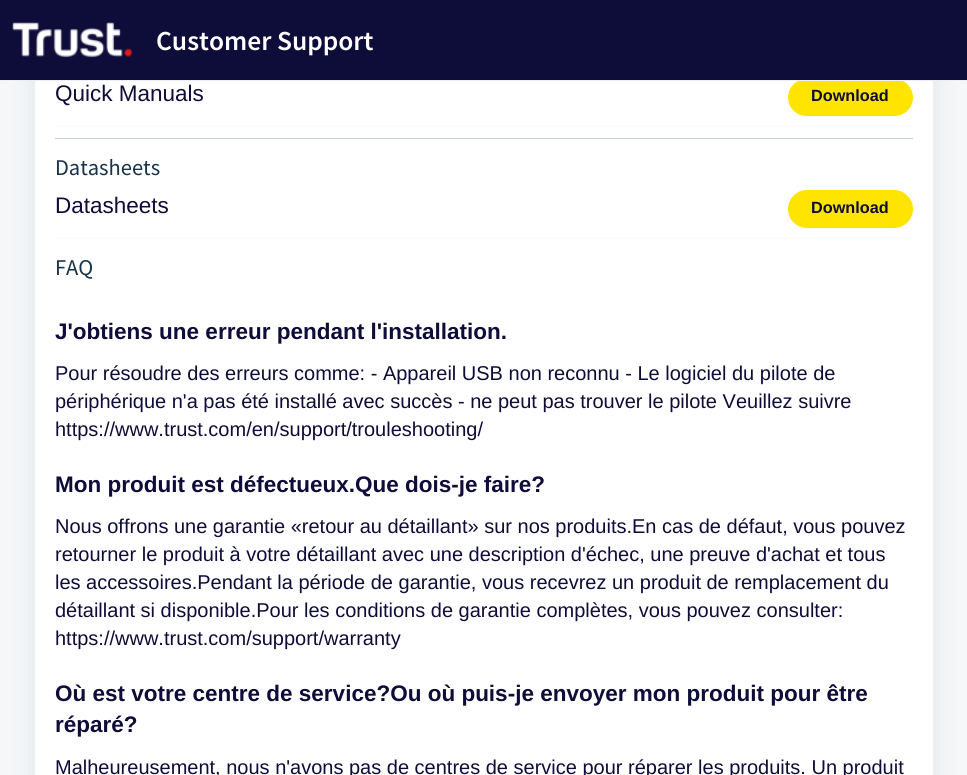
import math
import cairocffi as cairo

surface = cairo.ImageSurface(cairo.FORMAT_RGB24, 967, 775)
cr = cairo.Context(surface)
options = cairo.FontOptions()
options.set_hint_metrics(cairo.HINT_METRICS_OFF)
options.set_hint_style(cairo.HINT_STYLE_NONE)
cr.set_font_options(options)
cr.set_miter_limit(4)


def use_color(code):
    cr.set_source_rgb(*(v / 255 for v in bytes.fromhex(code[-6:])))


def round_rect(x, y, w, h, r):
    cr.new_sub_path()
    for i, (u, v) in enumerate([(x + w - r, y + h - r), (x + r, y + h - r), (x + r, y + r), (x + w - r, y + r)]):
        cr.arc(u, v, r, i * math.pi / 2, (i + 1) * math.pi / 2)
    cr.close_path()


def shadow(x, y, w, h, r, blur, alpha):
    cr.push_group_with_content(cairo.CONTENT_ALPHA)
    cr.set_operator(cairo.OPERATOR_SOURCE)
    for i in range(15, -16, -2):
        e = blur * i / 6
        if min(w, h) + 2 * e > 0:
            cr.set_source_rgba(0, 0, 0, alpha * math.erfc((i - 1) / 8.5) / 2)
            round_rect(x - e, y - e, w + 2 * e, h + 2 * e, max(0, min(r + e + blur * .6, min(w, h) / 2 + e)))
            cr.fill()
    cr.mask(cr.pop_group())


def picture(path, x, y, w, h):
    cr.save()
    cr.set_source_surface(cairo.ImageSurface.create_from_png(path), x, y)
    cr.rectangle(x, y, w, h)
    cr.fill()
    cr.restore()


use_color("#f5f7f9")
cr.paint()
use_color("#27313a")
shadow(34, -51, 900, 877, 15, 12, 0.1)
use_color("#ffffff")
cr.rectangle(35, 81, 898, 694)
cr.fill()
cr.rectangle(34.5, -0.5, 899, 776)
use_color("#ebeff3")
cr.set_line_width(1)
cr.stroke()
use_color("#ffe400")
round_rect(788, 79, 125, 37, 18.5)
cr.fill()
use_color("#0e0c38")
cr.rectangle(0, 0, 967, 80)
cr.fill()
use_color("#ebeff3")
cr.rectangle(0, 80, 967, 1)
cr.fill()
picture("img1.png", 12, 22, 121, 36)
cr.select_font_face("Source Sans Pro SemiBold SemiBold")
cr.set_font_size(27.5)
use_color("#ffffff")
cr.move_to(156, 50)
cr.show_text("Customer Support")
cr.select_font_face("Liberation Sans")
cr.set_font_size(22.5)
use_color("#0e0c38")
cr.move_to(55, 101)
cr.show_text("Quick Manuals")
cr.select_font_face("Liberation Sans", cairo.FONT_SLANT_NORMAL, cairo.FONT_WEIGHT_BOLD)
cr.set_font_size(16.25)
cr.move_to(811, 101)
cr.show_text("Download")
use_color("#fafbfc")
cr.rectangle(55, 126, 858, 1)
cr.fill()
use_color("#c9d2d9")
cr.rectangle(55, 138, 858, 1)
cr.fill()
cr.select_font_face("Source Sans Pro")
cr.set_font_size(22.5)
use_color("#183247")
cr.move_to(55, 175)
cr.show_text("Datasheets")
cr.select_font_face("Liberation Sans")
use_color("#0e0c38")
cr.move_to(55, 213)
cr.show_text("Datasheets")
use_color("#ffe400")
round_rect(788, 190, 125, 38, 19)
cr.fill()
cr.select_font_face("Liberation Sans", cairo.FONT_SLANT_NORMAL, cairo.FONT_WEIGHT_BOLD)
cr.set_font_size(16.25)
use_color("#0e0c38")
cr.move_to(811, 213)
cr.show_text("Download")
use_color("#fafbfc")
cr.rectangle(55, 238, 858, 1)
cr.fill()
cr.select_font_face("Source Sans Pro")
cr.set_font_size(22.5)
use_color("#183247")
cr.move_to(55, 275)
cr.show_text("FAQ")
cr.select_font_face("Liberation Sans", cairo.FONT_SLANT_NORMAL, cairo.FONT_WEIGHT_BOLD)
use_color("#0e0c38")
cr.move_to(55, 339)
cr.show_text("J'obtiens une erreur pendant l'installation.")
cr.select_font_face("Liberation Sans")
cr.set_font_size(20)
cr.move_to(55, 380)
cr.show_text("Pour résoudre des erreurs comme: - Appareil USB non reconnu - Le logiciel du pilote de")
cr.move_to(55, 408)
cr.show_text("périphérique n'a pas été installé avec succès - ne peut pas trouver le pilote Veuillez suivre")
cr.move_to(55, 436)
cr.show_text("https://www.trust.com/en/support/trouleshooting/")
cr.select_font_face("Liberation Sans", cairo.FONT_SLANT_NORMAL, cairo.FONT_WEIGHT_BOLD)
cr.set_font_size(22.5)
cr.move_to(55, 492)
cr.show_text("Mon produit est défectueux.Que dois-je faire?")
cr.select_font_face("Liberation Sans")
cr.set_font_size(20)
cr.move_to(55, 533)
cr.show_text("Nous offrons une garantie «retour au détaillant» sur nos produits.En cas de défaut, vous pouvez")
cr.move_to(55, 561)
cr.show_text("retourner le produit à votre détaillant avec une description d'échec, une preuve d'achat et tous")
cr.move_to(55, 589)
cr.show_text("les accessoires.Pendant la période de garantie, vous recevrez un produit de remplacement du")
cr.move_to(55, 617)
cr.show_text("détaillant si disponible.Pour les conditions de garantie complètes, vous pouvez consulter:")
cr.move_to(55, 645)
cr.show_text("https://www.trust.com/support/warranty")
cr.select_font_face("Liberation Sans", cairo.FONT_SLANT_NORMAL, cairo.FONT_WEIGHT_BOLD)
cr.set_font_size(22.5)
cr.move_to(55, 701)
cr.show_text("Où est votre centre de service?Ou où puis-je envoyer mon produit pour être")
cr.move_to(55, 732)
cr.show_text("réparé?")
cr.select_font_face("Liberation Sans")
cr.set_font_size(20)
cr.move_to(55, 774)
cr.show_text("Malheureusement, nous n'avons pas de centres de service pour réparer les produits. Un produit")
surface.write_to_png("result.png")
